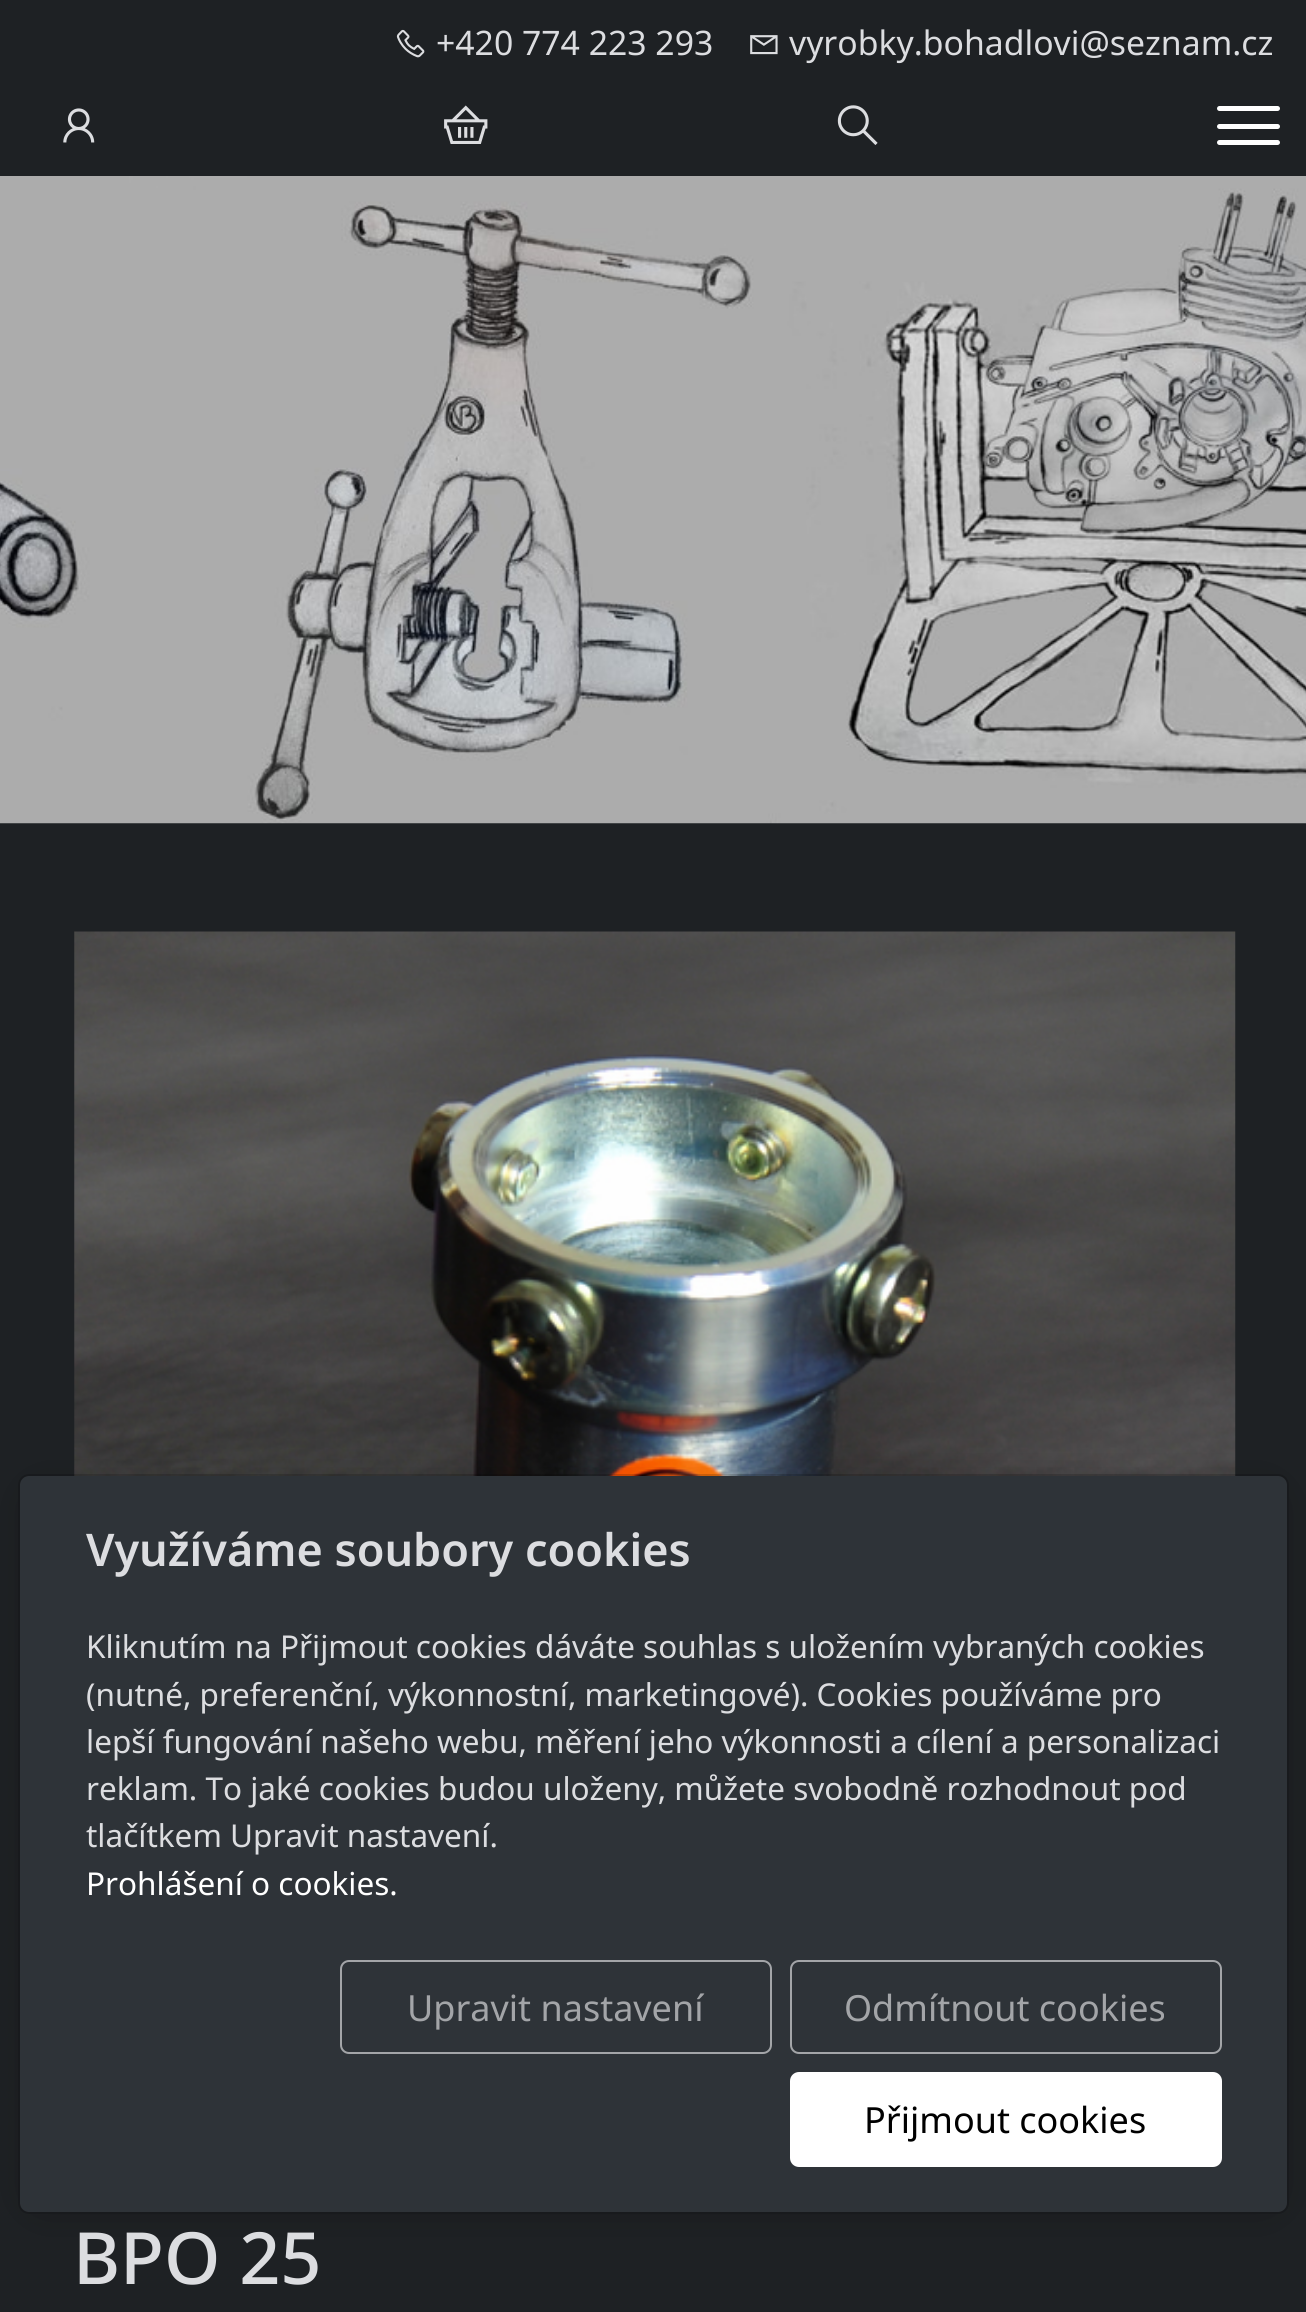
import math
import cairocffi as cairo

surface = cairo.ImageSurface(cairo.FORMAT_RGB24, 1306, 2312)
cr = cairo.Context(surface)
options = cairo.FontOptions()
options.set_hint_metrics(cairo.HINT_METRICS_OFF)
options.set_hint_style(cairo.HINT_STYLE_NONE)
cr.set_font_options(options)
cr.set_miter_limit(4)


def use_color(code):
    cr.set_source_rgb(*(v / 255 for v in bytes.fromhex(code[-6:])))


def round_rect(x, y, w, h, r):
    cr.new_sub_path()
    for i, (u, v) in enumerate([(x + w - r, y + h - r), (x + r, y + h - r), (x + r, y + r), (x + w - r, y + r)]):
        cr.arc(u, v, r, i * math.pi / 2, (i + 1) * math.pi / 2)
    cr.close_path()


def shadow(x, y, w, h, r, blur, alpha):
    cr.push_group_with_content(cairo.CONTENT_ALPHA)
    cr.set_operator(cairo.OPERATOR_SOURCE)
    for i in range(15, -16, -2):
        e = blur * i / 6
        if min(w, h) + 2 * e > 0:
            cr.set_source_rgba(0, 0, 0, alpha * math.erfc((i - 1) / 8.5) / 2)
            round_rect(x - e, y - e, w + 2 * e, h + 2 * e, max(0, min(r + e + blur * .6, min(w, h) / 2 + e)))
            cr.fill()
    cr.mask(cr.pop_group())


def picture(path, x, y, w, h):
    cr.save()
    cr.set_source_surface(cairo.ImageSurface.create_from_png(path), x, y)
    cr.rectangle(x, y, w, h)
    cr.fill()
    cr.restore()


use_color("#1e2124")
cr.paint()
picture("img1.png", 396, 29, 29, 29)
cr.select_font_face("Noto Sans")
cr.set_font_size(33.75)
use_color("#dcdde0")
cr.move_to(436, 55)
cr.show_text("+420 774 223 293")
picture("img2.png", 750, 35, 28, 20)
cr.move_to(789, 55)
cr.show_text("vyrobky.bohadlovi@seznam.cz")
picture("img3.png", 63, 108, 32, 35)
picture("img4.png", 444, 105, 44, 39)
picture("img5.png", 837, 105, 41, 40)
use_color("#ffffff")
round_rect(1217, 106, 63, 5, 2.5)
cr.fill()
round_rect(1217, 124, 63, 5, 2.5)
cr.fill()
round_rect(1217, 140, 63, 5, 2.5)
cr.fill()
picture("img6.png", 0, 176, 1306, 648)
picture("img7.png", 74, 931, 1162, 545)
cr.save()
cr.set_fill_rule(cairo.FILL_RULE_EVEN_ODD)
cr.new_path()
cr.move_to(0, 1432)
cr.line_to(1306, 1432)
cr.line_to(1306, 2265)
cr.line_to(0, 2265)
cr.close_path()
cr.move_to(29, 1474)
cr.line_to(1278, 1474)
cr.curve_to(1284, 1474, 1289, 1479, 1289, 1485)
cr.line_to(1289, 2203)
cr.curve_to(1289, 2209, 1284, 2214, 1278, 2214)
cr.line_to(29, 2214)
cr.curve_to(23, 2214, 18, 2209, 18, 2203)
cr.line_to(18, 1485)
cr.curve_to(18, 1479, 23, 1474, 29, 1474)
cr.close_path()
cr.clip()
use_color("#000000")
shadow(41, 1501, 1226, 695, 0, 22.5, 0.5)
cr.restore()
use_color("#2e3338")
round_rect(20, 1476, 1267, 736, 9)
cr.fill()
round_rect(19, 1475, 1269, 738, 10)
cr.set_source_rgba(0, 0, 0, 0.2)
cr.stroke()
cr.select_font_face("Noto Sans SemiBold")
cr.set_font_size(45)
use_color("#dcdde0")
cr.move_to(86, 1566)
cr.show_text("Využíváme soubory cookies")
cr.select_font_face("Noto Sans")
cr.set_font_size(31.5)
cr.move_to(86, 1658)
cr.show_text("Kliknutím na Přijmout cookies dáváte souhlas s uložením vybraných cookies")
cr.move_to(86, 1706)
cr.show_text("(nutné, preferenční, výkonnostní, marketingové). Cookies používáme pro")
cr.move_to(86, 1753)
cr.show_text("lepší fungování našeho webu, měření jeho výkonnosti a cílení a personalizaci")
cr.move_to(86, 1800)
cr.show_text("reklam. To jaké cookies budou uloženy, můžete svobodně rozhodnout pod")
cr.move_to(86, 1847)
cr.show_text("tlačítkem Upravit nastavení.")
use_color("#ffffff")
cr.move_to(86, 1895)
cr.show_text("Prohlášení o cookies.")
round_rect(341, 1961, 430, 92, 8)
use_color("#a3a5a8")
cr.stroke()
cr.set_font_size(36)
cr.move_to(407, 2021)
cr.show_text("Upravit nastavení")
round_rect(791, 1961, 430, 92, 8)
cr.stroke()
cr.move_to(844, 2021)
cr.show_text("Odmítnout cookies")
use_color("#ffffff")
round_rect(791, 2073, 430, 93, 8)
cr.fill_preserve()
cr.stroke()
use_color("#000000")
cr.move_to(864, 2133)
cr.show_text("Přijmout cookies")
cr.select_font_face("Noto Sans Medium")
cr.set_font_size(72)
use_color("#dcdde0")
cr.move_to(73, 2284)
cr.show_text("BPO 25")
surface.write_to_png("result.png")
